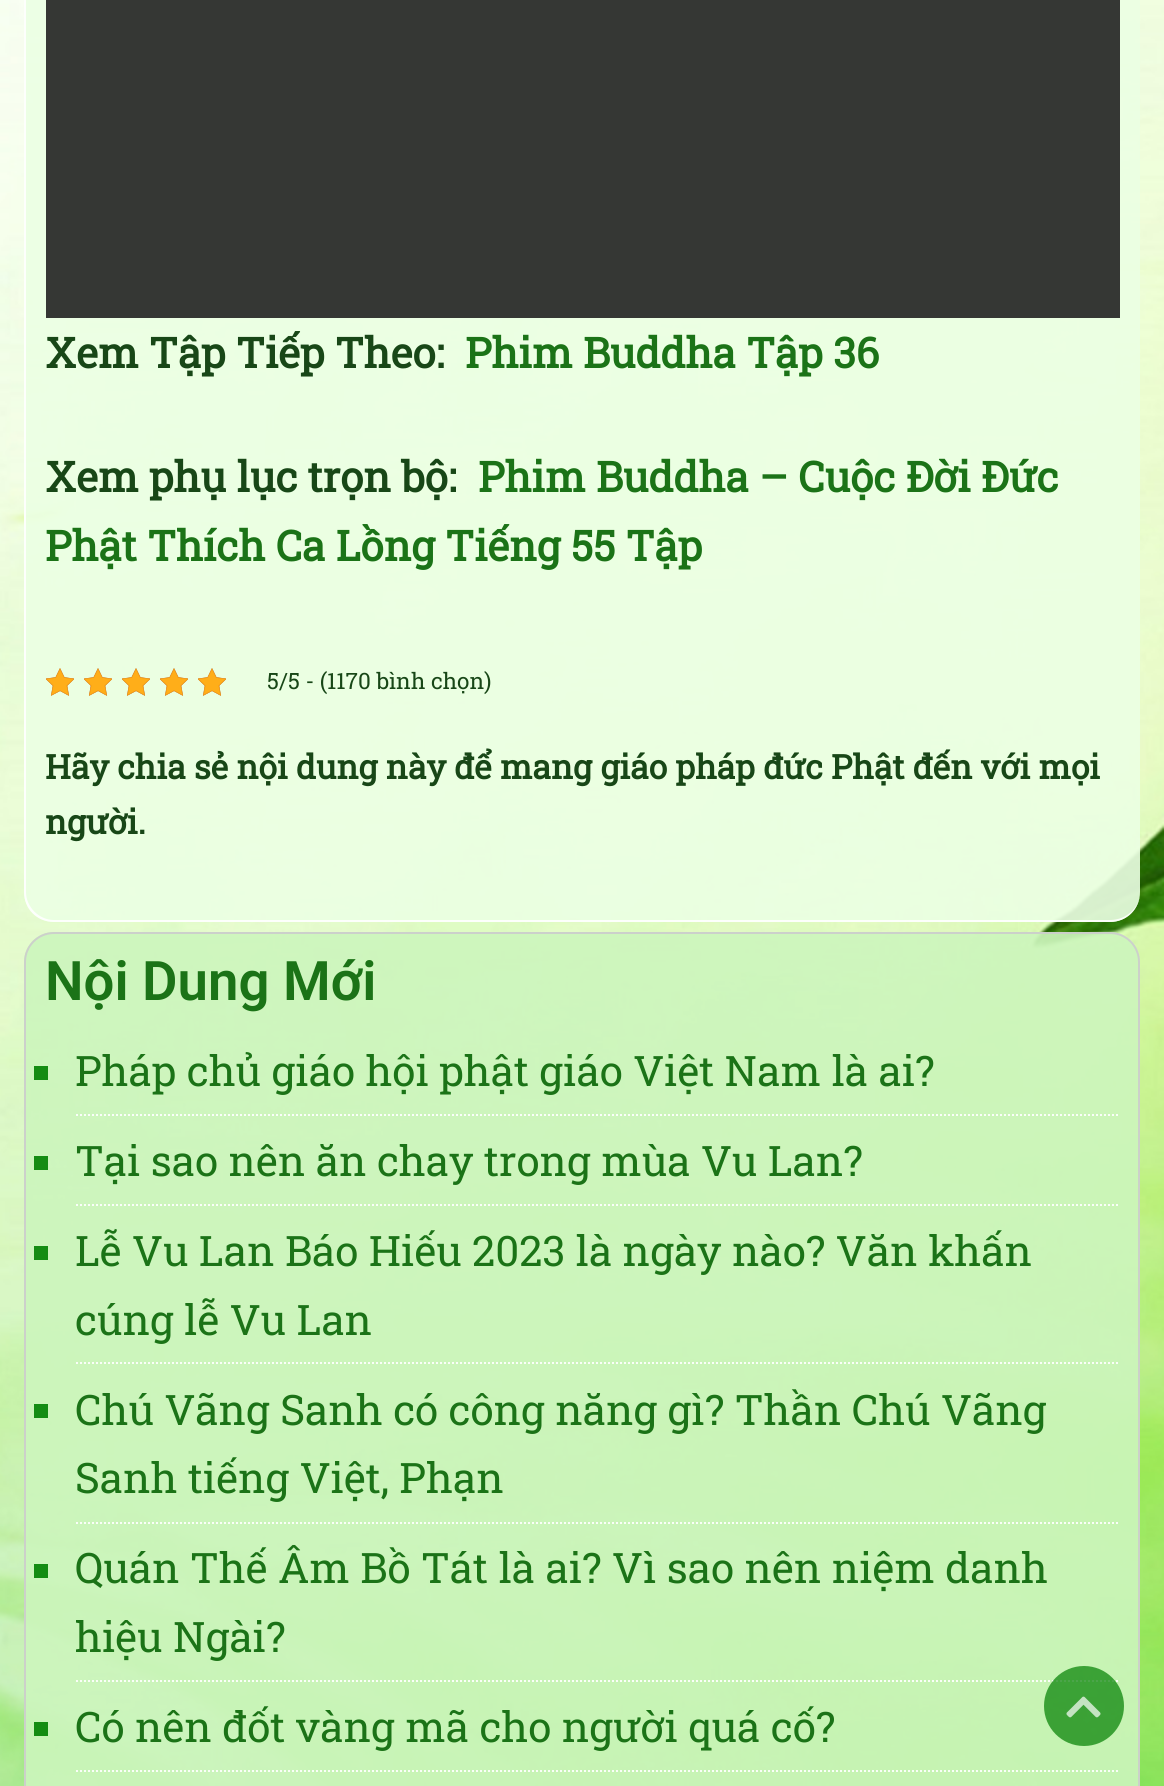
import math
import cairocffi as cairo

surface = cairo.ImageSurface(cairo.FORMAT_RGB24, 1164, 1786)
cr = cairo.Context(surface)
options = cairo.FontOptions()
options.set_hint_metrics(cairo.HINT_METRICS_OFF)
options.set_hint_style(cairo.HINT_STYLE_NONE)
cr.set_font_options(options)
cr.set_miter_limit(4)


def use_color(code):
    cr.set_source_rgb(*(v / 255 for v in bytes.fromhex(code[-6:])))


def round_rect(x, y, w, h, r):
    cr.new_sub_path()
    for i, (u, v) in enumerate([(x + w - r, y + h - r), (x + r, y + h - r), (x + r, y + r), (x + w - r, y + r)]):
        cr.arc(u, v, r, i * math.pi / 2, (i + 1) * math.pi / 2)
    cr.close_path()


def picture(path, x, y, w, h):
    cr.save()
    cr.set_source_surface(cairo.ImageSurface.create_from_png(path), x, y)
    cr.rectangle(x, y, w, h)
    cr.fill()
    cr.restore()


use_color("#ffffff")
cr.paint()
picture("img1.png", 0, 0, 1164, 1786)
cr.set_source_rgba(0.922, 1, 0.894, 0.9)
round_rect(24, -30, 1116, 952, 30)
cr.fill()
cr.set_source_rgba(1, 1, 1, 0.9)
cr.set_fill_rule(cairo.FILL_RULE_EVEN_ODD)
cr.new_path()
cr.move_to(54, -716)
cr.line_to(1110, -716)
cr.curve_to(1127, -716, 1140, -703, 1140, -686)
cr.line_to(1140, 892)
cr.curve_to(1140, 909, 1127, 922, 1110, 922)
cr.line_to(54, 922)
cr.curve_to(37, 922, 24, 909, 24, 892)
cr.line_to(24, -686)
cr.curve_to(24, -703, 37, -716, 54, -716)
cr.close_path()
cr.move_to(54, -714)
cr.line_to(1110, -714)
cr.curve_to(1127, -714, 1140, -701, 1140, -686)
cr.line_to(1140, 892)
cr.curve_to(1140, 907, 1127, 920, 1110, 920)
cr.line_to(54, 920)
cr.curve_to(39, 920, 26, 907, 26, 892)
cr.line_to(26, -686)
cr.curve_to(26, -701, 39, -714, 54, -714)
cr.close_path()
cr.fill()
cr.set_source_rgba(0.133, 0.133, 0.133, 0.9)
cr.rectangle(46, 0, 1074, 318)
cr.fill()
cr.select_font_face("Roboto Slab", cairo.FONT_SLANT_NORMAL, cairo.FONT_WEIGHT_BOLD)
cr.set_font_size(42)
use_color("#184717")
cr.move_to(45, 368)
cr.show_text("Xem Tập Tiếp Theo:")
use_color("#1b7317")
cr.move_to(465, 368)
cr.show_text("Phim Buddha Tập 36")
use_color("#184717")
cr.move_to(45, 492)
cr.show_text("Xem phụ lục trọn bộ:")
use_color("#1b7317")
cr.move_to(478, 492)
cr.show_text("Phim Buddha – Cuộc Đời Đức")
cr.move_to(45, 561)
cr.show_text("Phật Thích Ca Lồng Tiếng 55 Tập")
picture("img2.png", 46, 668, 28, 28)
picture("img3.png", 84, 668, 28, 28)
picture("img4.png", 122, 668, 28, 28)
picture("img5.png", 160, 668, 28, 28)
picture("img6.png", 198, 668, 28, 28)
picture("img7.png", 46, 668, 28, 28)
picture("img8.png", 84, 668, 28, 28)
picture("img9.png", 122, 668, 28, 28)
picture("img10.png", 160, 668, 28, 28)
picture("img11.png", 198, 668, 28, 28)
cr.select_font_face("Roboto Slab")
cr.set_font_size(22.5)
use_color("#184717")
cr.move_to(267, 689)
cr.show_text("5/5 - (1170 bình chọn)")
cr.select_font_face("Roboto Slab", cairo.FONT_SLANT_NORMAL, cairo.FONT_WEIGHT_BOLD)
cr.set_font_size(33.6)
cr.move_to(45, 779)
cr.show_text("Hãy chia sẻ nội dung này để mang giáo pháp đức Phật đến với mọi")
cr.move_to(45, 834)
cr.show_text("người.")
cr.set_source_rgba(0.8, 0.961, 0.741, 0.9)
round_rect(24, 932, 1116, 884, 30)
cr.fill()
round_rect(25, 933, 1114, 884, 29)
cr.set_source_rgba(0.8, 0.8, 0.8, 0.9)
cr.stroke()
cr.select_font_face("Roboto SemiBold")
cr.set_font_size(54.5)
use_color("#1b7317")
cr.move_to(45, 1000)
cr.show_text("Nội Dung Mới")
cr.new_path()
cr.move_to(76, 1115)
cr.line_to(1118, 1115)
cr.set_source_rgba(1, 1, 1, 0.9)
cr.set_dash([2, 2])
cr.stroke()
use_color("#158c13")
cr.rectangle(34, 1066, 14, 14)
cr.fill()
cr.select_font_face("Roboto Slab")
cr.set_font_size(42)
use_color("#1b7317")
cr.move_to(75, 1086)
cr.show_text("Pháp chủ giáo hội phật giáo Việt Nam là ai?")
cr.new_path()
cr.move_to(76, 1205)
cr.line_to(1118, 1205)
cr.set_source_rgba(1, 1, 1, 0.9)
cr.stroke()
use_color("#158c13")
cr.rectangle(34, 1156, 14, 14)
cr.fill()
use_color("#1b7317")
cr.move_to(75, 1176)
cr.show_text("Tại sao nên ăn chay trong mùa Vu Lan?")
cr.new_path()
cr.move_to(76, 1363)
cr.line_to(1118, 1363)
cr.set_source_rgba(1, 1, 1, 0.9)
cr.stroke()
use_color("#158c13")
cr.rectangle(34, 1246, 14, 14)
cr.fill()
use_color("#1b7317")
cr.move_to(75, 1266)
cr.show_text("Lễ Vu Lan Báo Hiếu 2023 là ngày nào? Văn khấn")
cr.move_to(75, 1335)
cr.show_text("cúng lễ Vu Lan")
cr.new_path()
cr.move_to(76, 1523)
cr.line_to(1118, 1523)
cr.set_source_rgba(1, 1, 1, 0.9)
cr.stroke()
use_color("#148c13")
cr.rectangle(34, 1404, 14, 14)
cr.fill()
use_color("#1b7317")
cr.move_to(75, 1425)
cr.show_text("Chú Vãng Sanh có công năng gì? Thần Chú Vãng")
cr.move_to(75, 1493)
cr.show_text("Sanh tiếng Việt, Phạn")
cr.new_path()
cr.move_to(76, 1681)
cr.line_to(1118, 1681)
cr.set_source_rgba(1, 1, 1, 0.9)
cr.stroke()
use_color("#148c13")
cr.rectangle(34, 1564, 14, 14)
cr.fill()
use_color("#1b7317")
cr.move_to(75, 1583)
cr.show_text("Quán Thế Âm Bồ Tát là ai? Vì sao nên niệm danh")
cr.move_to(75, 1652)
cr.show_text("hiệu Ngài?")
cr.new_path()
cr.move_to(76, 1771)
cr.line_to(1118, 1771)
cr.set_source_rgba(1, 1, 1, 0.9)
cr.stroke()
use_color("#148c12")
cr.rectangle(34, 1722, 14, 14)
cr.fill()
use_color("#1b7317")
cr.move_to(75, 1742)
cr.show_text("Có nên đốt vàng mã cho người quá cố?")
cr.set_source_rgba(0, 0.502, 0, 0.7)
cr.new_path()
cr.arc(1084, 1706, 40, 0, 2 * math.pi)
cr.fill()
picture("img12.png", 1066, 1696, 35, 22)
surface.write_to_png("result.png")
